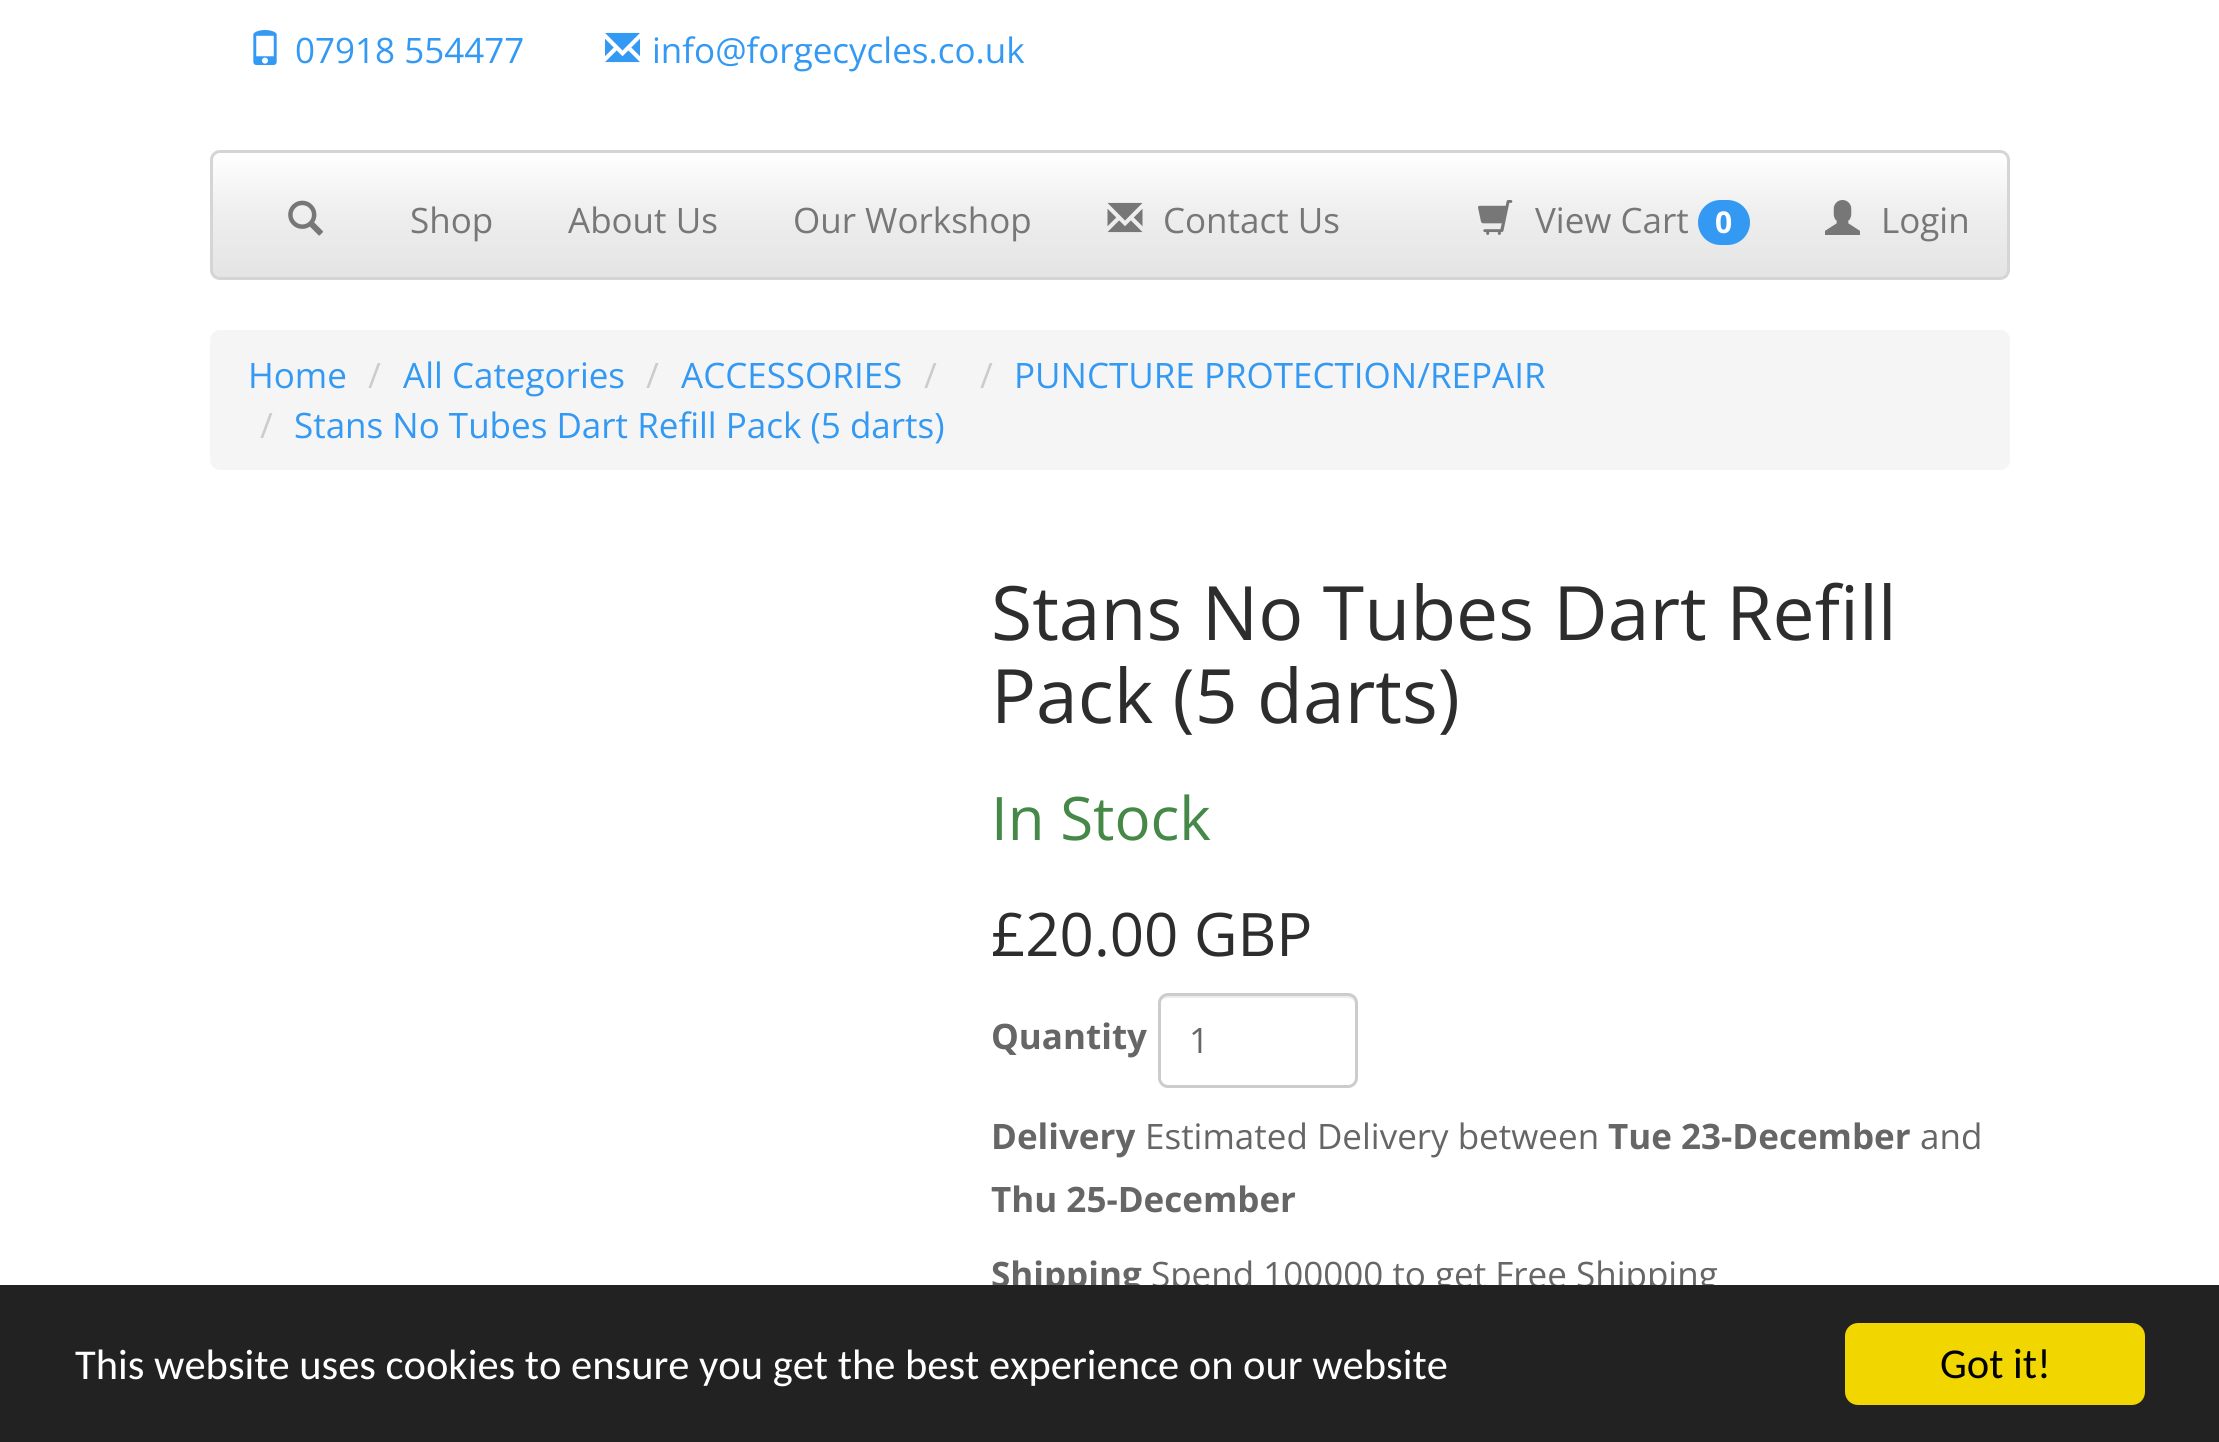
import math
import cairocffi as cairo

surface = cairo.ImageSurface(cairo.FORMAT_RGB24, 2219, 1442)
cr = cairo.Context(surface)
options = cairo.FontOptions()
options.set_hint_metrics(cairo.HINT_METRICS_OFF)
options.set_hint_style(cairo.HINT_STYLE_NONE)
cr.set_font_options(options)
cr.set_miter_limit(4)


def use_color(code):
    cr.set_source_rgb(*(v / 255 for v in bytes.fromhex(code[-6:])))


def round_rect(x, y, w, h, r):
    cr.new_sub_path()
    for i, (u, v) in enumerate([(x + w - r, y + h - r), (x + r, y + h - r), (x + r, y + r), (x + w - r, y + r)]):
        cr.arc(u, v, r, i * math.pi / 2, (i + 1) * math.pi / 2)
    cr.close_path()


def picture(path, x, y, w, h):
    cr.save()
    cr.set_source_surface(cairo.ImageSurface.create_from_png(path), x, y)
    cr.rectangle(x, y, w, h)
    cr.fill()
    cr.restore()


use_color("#ffffff")
cr.paint()
picture("img1.png", 253, 30, 24, 35)
cr.select_font_face("Open Sans")
cr.set_font_size(35)
use_color("#3399f3")
cr.move_to(295, 63)
cr.show_text("07918 554477")
picture("img2.png", 605, 32, 35, 31)
cr.move_to(652, 63)
cr.show_text("info@forgecycles.co.uk")
cr.save()
round_rect(210, 150, 1800, 130, 10)
cr.clip()
gradient = cairo.LinearGradient(1110, 152, 1110, 278)
gradient.add_color_stop_rgba(0, 1, 1, 1, 1)
gradient.add_color_stop_rgba(0.5, 0.933, 0.933, 0.933, 1)
gradient.add_color_stop_rgba(1, 0.894, 0.894, 0.894, 1)
cr.set_source(gradient)
cr.rectangle(213, 153, 1795, 125)
cr.fill()
cr.restore()
round_rect(211.5, 151.5, 1797, 127, 8.5)
use_color("#d5d5d5")
cr.set_line_width(3)
cr.stroke()
picture("img3.png", 288, 200, 35, 36)
use_color("#777777")
cr.move_to(410, 233)
cr.show_text("Shop")
cr.move_to(568, 233)
cr.show_text("About Us")
cr.move_to(793, 233)
cr.show_text("Our Workshop")
picture("img4.png", 1107, 202, 36, 31)
cr.move_to(1163, 233)
cr.show_text("Contact Us")
picture("img5.png", 1478, 200, 35, 35)
cr.move_to(1535, 233)
cr.show_text("View Cart")
use_color("#3399f3")
round_rect(1698, 200, 52, 45, 22.5)
cr.fill()
cr.select_font_face("Open Sans", cairo.FONT_SLANT_NORMAL, cairo.FONT_WEIGHT_BOLD)
cr.set_font_size(30)
use_color("#ffffff")
cr.move_to(1715, 233)
cr.show_text("0")
picture("img6.png", 1825, 200, 35, 35)
cr.select_font_face("Open Sans")
cr.set_font_size(35)
use_color("#777777")
cr.move_to(1881, 233)
cr.show_text("Login")
use_color("#f5f5f5")
round_rect(210, 330, 1800, 140, 10)
cr.fill()
use_color("#3399f3")
cr.move_to(248, 388)
cr.show_text("Home")
use_color("#cccccc")
cr.move_to(368, 388)
cr.show_text("/")
use_color("#3399f3")
cr.move_to(403, 388)
cr.show_text("All Categories")
use_color("#cccccc")
cr.move_to(646, 388)
cr.show_text("/")
use_color("#3399f3")
cr.move_to(681, 388)
cr.show_text("ACCESSORIES")
use_color("#cccccc")
cr.move_to(924, 388)
cr.show_text("/")
cr.move_to(980, 388)
cr.show_text("/")
use_color("#3399f3")
cr.move_to(1014, 388)
cr.show_text("PUNCTURE PROTECTION/REPAIR")
use_color("#cccccc")
cr.move_to(260, 438)
cr.show_text("/")
use_color("#3399f3")
cr.move_to(294, 438)
cr.show_text("Stans No Tubes Dart Refill Pack (5 darts)")
cr.set_font_size(75)
use_color("#2d2d2d")
cr.move_to(991, 640)
cr.show_text("Stans No Tubes Dart Refill")
cr.move_to(991, 723)
cr.show_text("Pack (5 darts)")
cr.set_font_size(60)
use_color("#468847")
cr.move_to(991, 840)
cr.show_text("In Stock")
use_color("#2d2d2d")
cr.move_to(991, 956)
cr.show_text("£20.00 GBP")
cr.select_font_face("Open Sans", cairo.FONT_SLANT_NORMAL, cairo.FONT_WEIGHT_BOLD)
cr.set_font_size(35)
use_color("#666666")
cr.move_to(991, 1049)
cr.show_text("Quantity")
use_color("#ececec")
cr.new_path()
cr.move_to(1168, 998)
cr.line_to(1348, 998)
cr.curve_to(1352, 998, 1355, 1001, 1355, 1005)
cr.line_to(1355, 1003)
cr.curve_to(1355, 999, 1351, 995, 1347, 995)
cr.line_to(1168, 995)
cr.curve_to(1164, 995, 1160, 999, 1160, 1003)
cr.line_to(1160, 1005)
cr.curve_to(1160, 1001, 1163, 998, 1168, 998)
cr.close_path()
cr.fill()
round_rect(1159.5, 994.5, 197, 92, 8.5)
use_color("#cccccc")
cr.stroke()
cr.select_font_face("Open Sans")
use_color("#666666")
cr.move_to(1189, 1053)
cr.show_text("1")
cr.select_font_face("Open Sans", cairo.FONT_SLANT_NORMAL, cairo.FONT_WEIGHT_BOLD)
cr.move_to(991, 1149)
cr.show_text("Delivery")
cr.select_font_face("Open Sans")
cr.move_to(1145, 1149)
cr.show_text("Estimated Delivery between")
cr.select_font_face("Open Sans", cairo.FONT_SLANT_NORMAL, cairo.FONT_WEIGHT_BOLD)
cr.move_to(1608, 1149)
cr.show_text("Tue 23-December")
cr.select_font_face("Open Sans")
cr.move_to(1920, 1149)
cr.show_text("and")
cr.select_font_face("Open Sans", cairo.FONT_SLANT_NORMAL, cairo.FONT_WEIGHT_BOLD)
cr.move_to(991, 1212)
cr.show_text("Thu 25-December")
cr.move_to(991, 1287)
cr.show_text("Shipping")
cr.select_font_face("Open Sans")
cr.move_to(1151, 1287)
cr.show_text("Spend 100000 to get Free Shipping")
use_color("#222222")
cr.rectangle(0, 1285, 2219, 157)
cr.fill()
cr.select_font_face("Carlito")
cr.set_font_size(42.5)
use_color("#ffffff")
cr.move_to(75, 1379)
cr.show_text("This website uses cookies to ensure you get the best experience on our website")
use_color("#f1d600")
round_rect(1845, 1323, 300, 82, 13)
cr.fill()
use_color("#000000")
cr.move_to(1940, 1378)
cr.show_text("Got it!")
surface.write_to_png("result.png")
